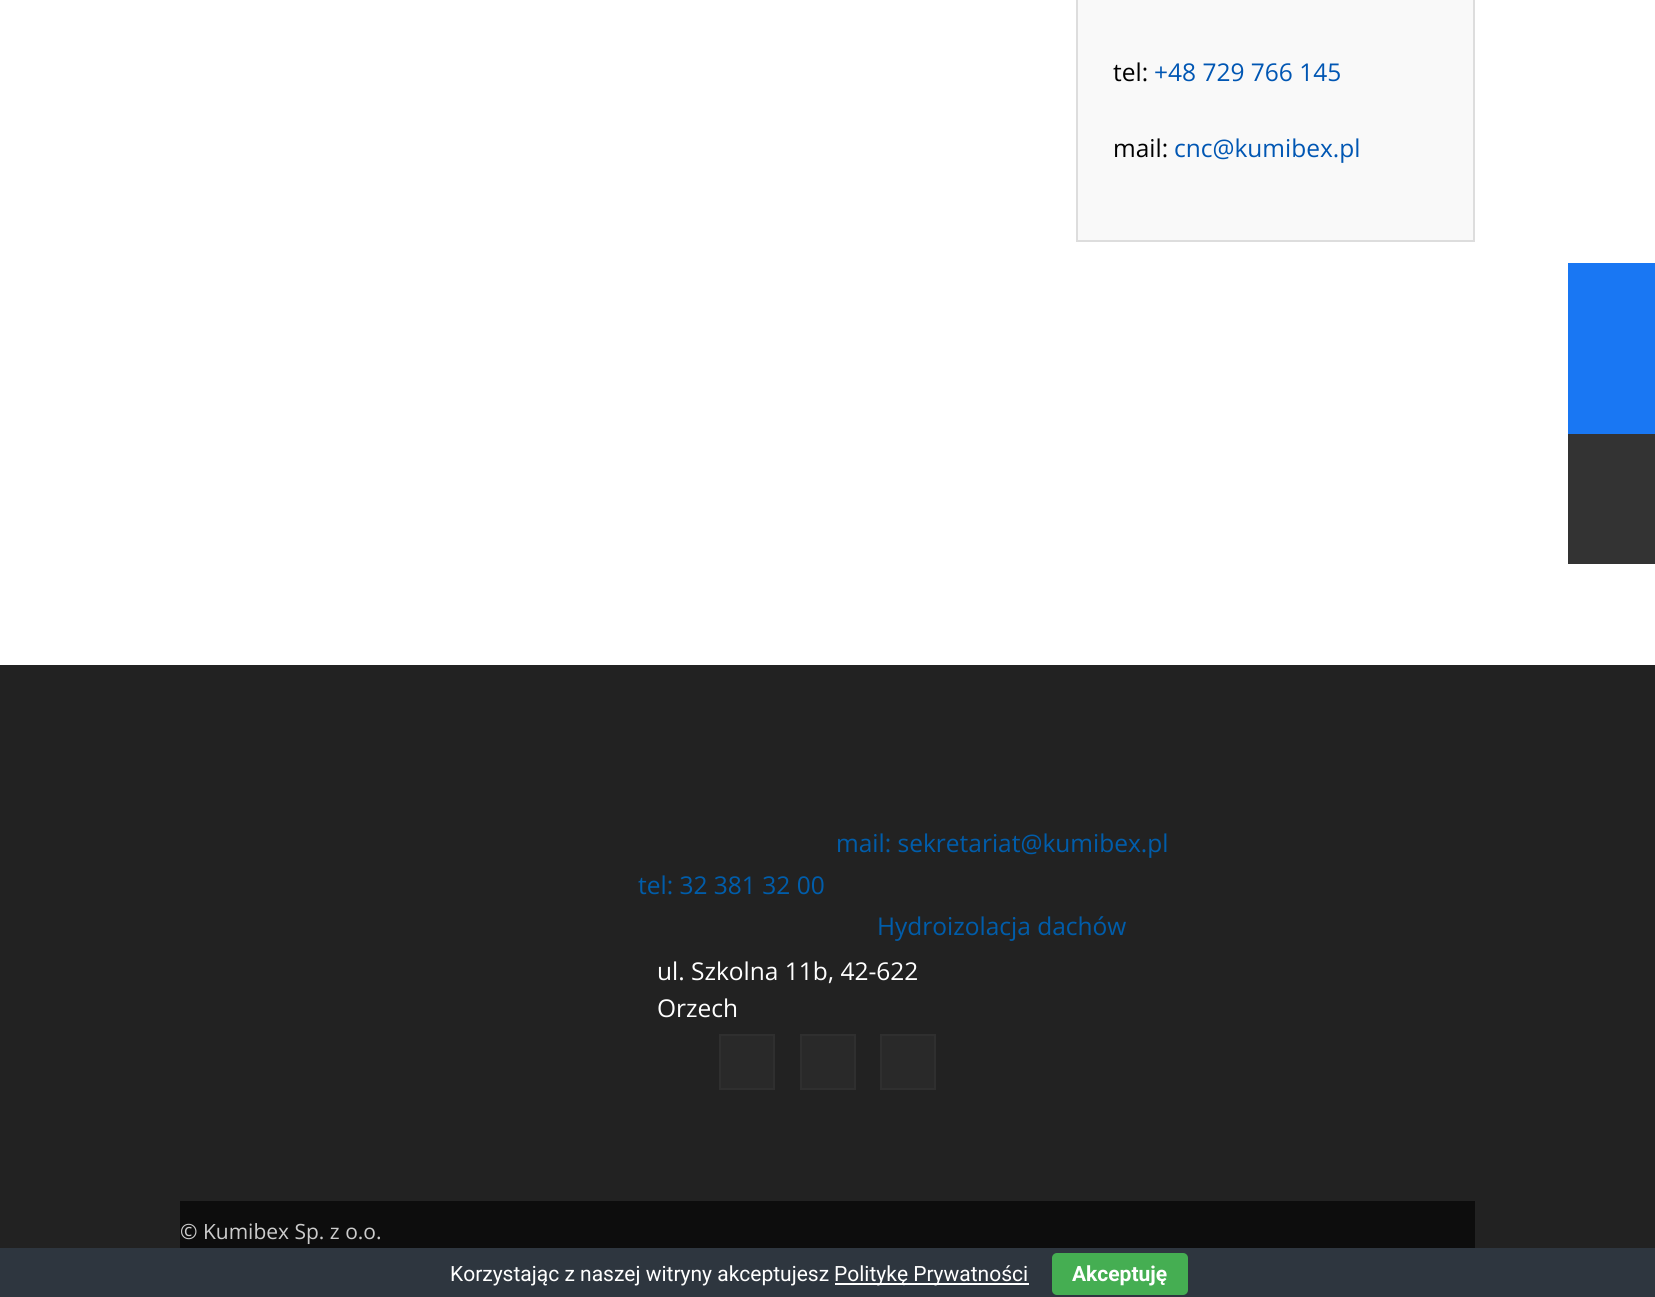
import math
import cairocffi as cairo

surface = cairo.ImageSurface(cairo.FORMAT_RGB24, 1655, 1297)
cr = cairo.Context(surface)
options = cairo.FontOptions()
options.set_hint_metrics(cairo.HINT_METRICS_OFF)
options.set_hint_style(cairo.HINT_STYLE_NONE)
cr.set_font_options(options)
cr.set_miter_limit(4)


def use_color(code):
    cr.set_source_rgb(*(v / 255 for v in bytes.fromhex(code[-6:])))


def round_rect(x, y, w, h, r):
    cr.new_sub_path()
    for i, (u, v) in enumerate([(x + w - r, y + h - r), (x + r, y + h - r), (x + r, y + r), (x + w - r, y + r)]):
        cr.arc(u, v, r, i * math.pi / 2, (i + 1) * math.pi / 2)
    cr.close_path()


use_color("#ffffff")
cr.paint()
use_color("#f9f9f9")
cr.rectangle(1077, -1, 397, 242)
cr.fill_preserve()
use_color("#dddddd")
cr.stroke()
cr.select_font_face("Open Sans")
cr.set_font_size(24.5)
use_color("#000000")
cr.move_to(1113, 81)
cr.show_text("tel:")
use_color("#0056b3")
cr.move_to(1154, 81)
cr.show_text("+48 729 766 145")
use_color("#000000")
cr.move_to(1113, 157)
cr.show_text("mail:")
use_color("#0056b3")
cr.move_to(1174, 157)
cr.show_text("cnc@kumibex.pl")
use_color("#1977f3")
cr.rectangle(1568, 263, 87, 171)
cr.fill()
use_color("#333333")
cr.rectangle(1568, 434, 87, 130)
cr.fill()
use_color("#222222")
cr.rectangle(0, 665, 1655, 583)
cr.fill()
use_color("#005dab")
cr.move_to(638, 894)
cr.show_text("tel: 32 381 32 00")
cr.move_to(836, 852)
cr.show_text("mail: sekretariat@kumibex.pl")
cr.move_to(877, 935)
cr.show_text("Hydroizolacja dachów")
use_color("#ffffff")
cr.move_to(657, 980)
cr.show_text("ul. Szkolna 11b, 42-622")
cr.move_to(657, 1017)
cr.show_text("Orzech")
use_color("#292929")
cr.rectangle(720, 1035, 54, 54)
cr.fill_preserve()
use_color("#2f2f2f")
cr.stroke()
use_color("#292929")
cr.rectangle(801, 1035, 54, 54)
cr.fill_preserve()
use_color("#2f2f2f")
cr.stroke()
use_color("#292929")
cr.rectangle(881, 1035, 54, 54)
cr.fill_preserve()
use_color("#2f2f2f")
cr.stroke()
use_color("#0d0d0d")
cr.rectangle(180, 1201, 1295, 47)
cr.fill()
cr.set_font_size(21)
use_color("#cccccc")
cr.move_to(180, 1239)
cr.show_text("© Kumibex Sp. z o.o.")
use_color("#2e363f")
cr.rectangle(0, 1248, 1655, 49)
cr.fill()
cr.select_font_face("Roboto")
use_color("#ffffff")
cr.move_to(450, 1281)
cr.show_text("Korzystając z naszej witryny akceptujesz")
cr.rectangle(835, 1283, 194, 2)
cr.fill()
cr.move_to(834, 1281)
cr.show_text("Politykę Prywatności")
use_color("#45ae52")
round_rect(1052, 1253, 136, 42, 5)
cr.fill()
cr.select_font_face("Roboto", cairo.FONT_SLANT_NORMAL, cairo.FONT_WEIGHT_BOLD)
use_color("#ffffff")
cr.move_to(1072, 1281)
cr.show_text("Akceptuję")
surface.write_to_png("result.png")
